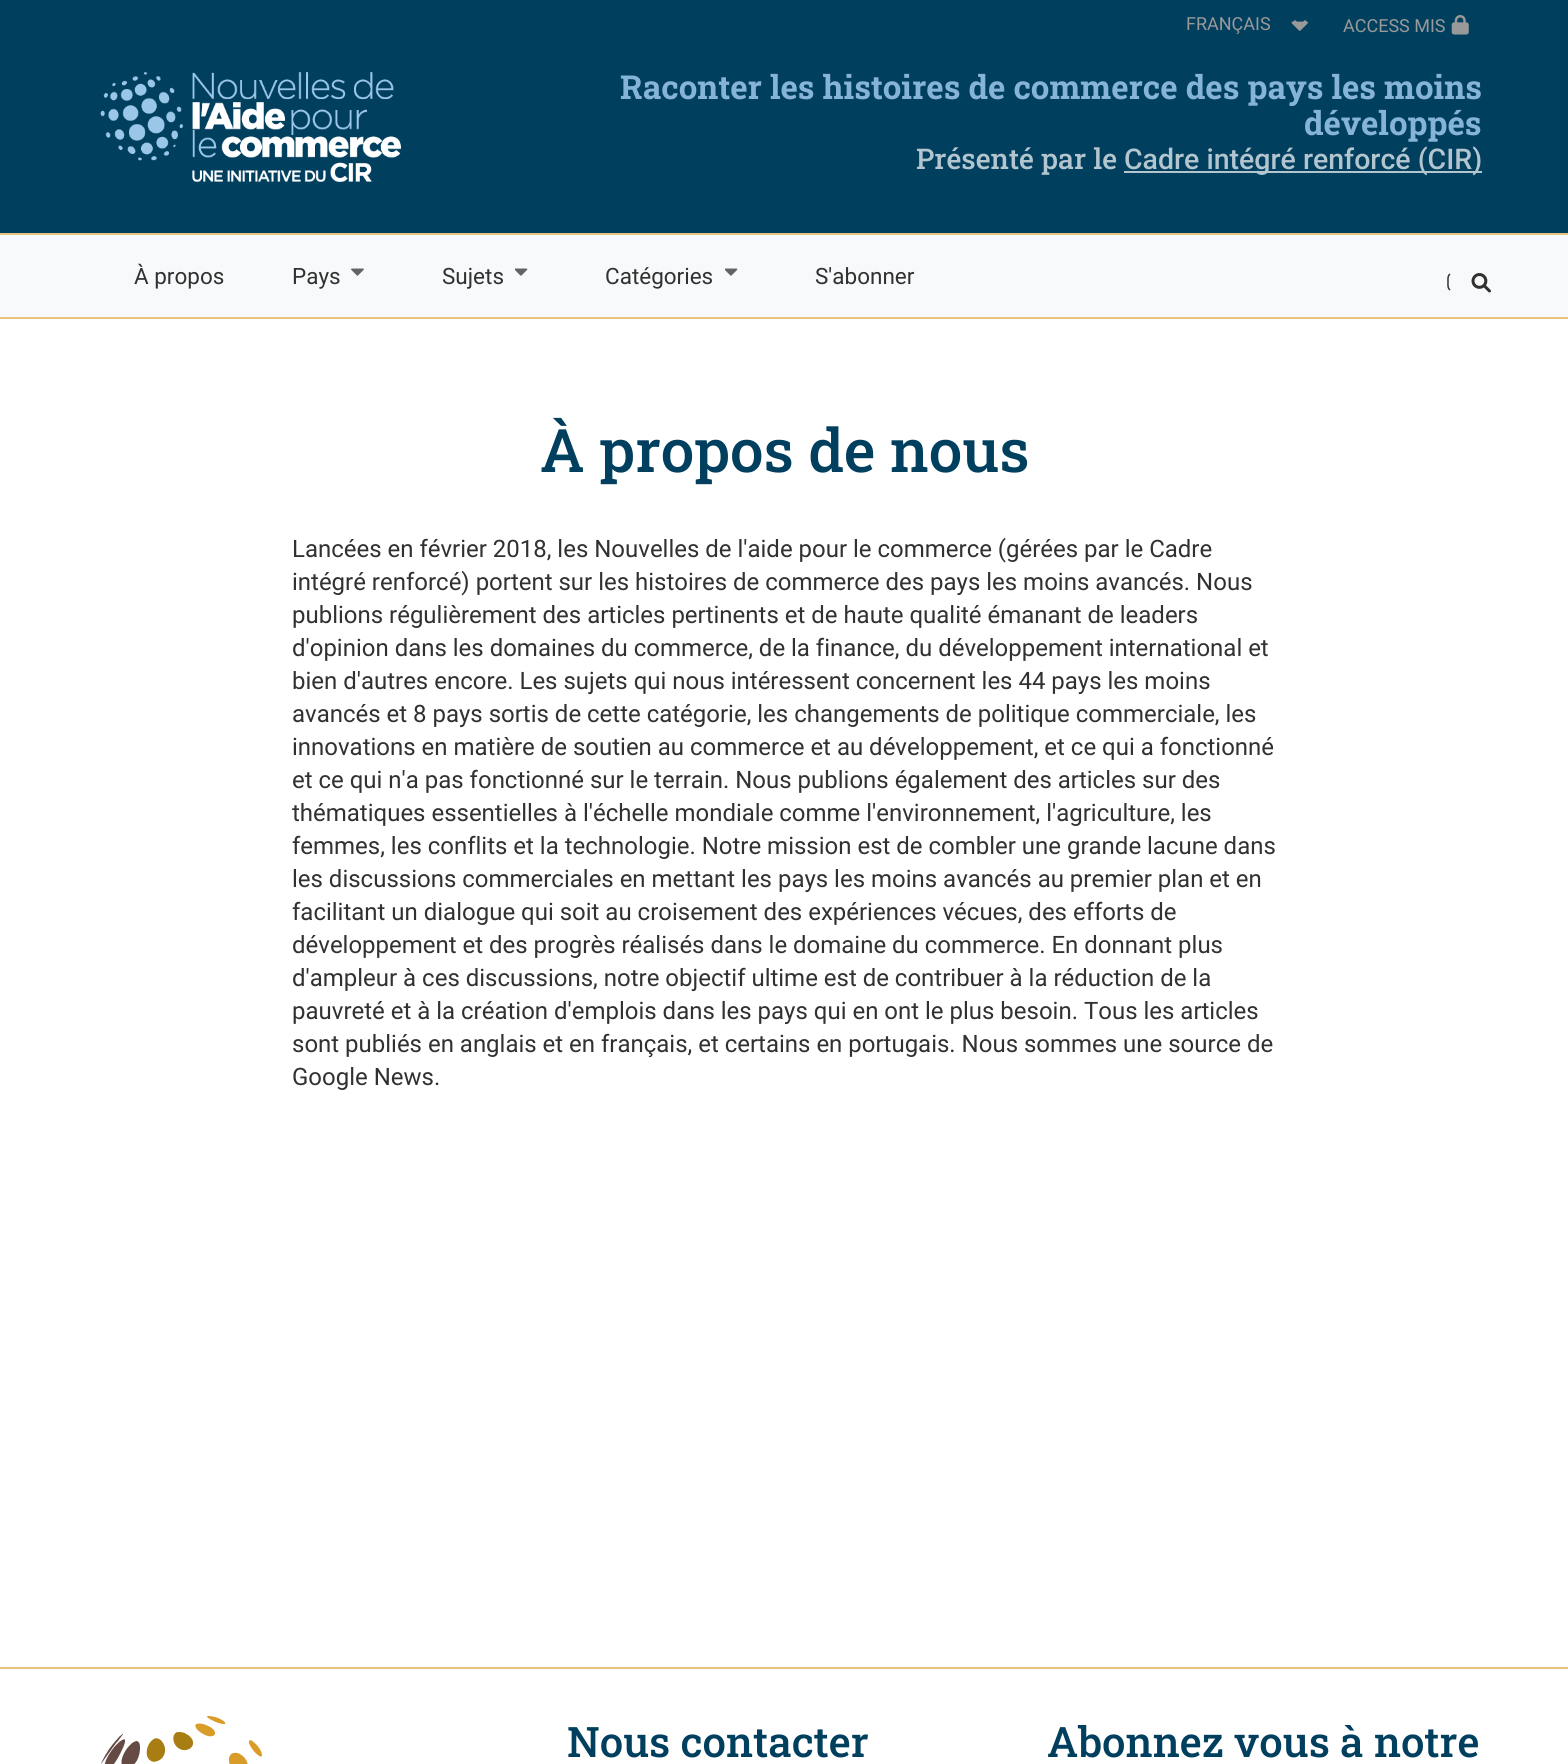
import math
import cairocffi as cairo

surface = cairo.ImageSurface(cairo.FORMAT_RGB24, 1568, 1764)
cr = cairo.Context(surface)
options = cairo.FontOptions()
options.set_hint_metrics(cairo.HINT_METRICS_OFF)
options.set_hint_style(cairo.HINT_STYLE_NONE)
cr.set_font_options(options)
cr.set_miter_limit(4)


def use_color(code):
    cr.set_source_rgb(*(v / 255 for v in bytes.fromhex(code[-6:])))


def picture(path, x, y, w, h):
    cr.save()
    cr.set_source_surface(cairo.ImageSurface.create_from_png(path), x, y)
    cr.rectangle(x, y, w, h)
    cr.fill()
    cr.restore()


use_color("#ffffff")
cr.paint()
use_color("#013f5f")
cr.rectangle(0, 0, 1568, 233)
cr.fill()
cr.new_path()
cr.move_to(1294, 21)
cr.line_to(1300, 27)
cr.line_to(1306, 21)
use_color("#999999")
cr.set_line_width(3)
cr.stroke()
cr.select_font_face("Roboto")
cr.set_font_size(18)
cr.move_to(1186, 30)
cr.show_text("FRANÇAIS")
picture("img1.png", 1291, 21, 17, 10)
cr.move_to(1343, 32)
cr.show_text("ACCESS MIS")
picture("img2.png", 1451, 15, 18, 20)
picture("img3.png", 100, 71, 301, 111)
cr.select_font_face("Roboto Slab", cairo.FONT_SLANT_NORMAL, cairo.FONT_WEIGHT_BOLD)
cr.set_font_size(33)
use_color("#85b4d7")
cr.move_to(620, 99)
cr.show_text("Raconter les histoires de commerce des pays les moins")
cr.move_to(1304, 135)
cr.show_text("développés")
cr.select_font_face("Roboto Slab Medium")
cr.set_font_size(28.5)
use_color("#b3c5cf")
cr.move_to(916, 169)
cr.show_text("Présenté par le")
cr.rectangle(1124, 171, 358, 2)
cr.fill()
cr.select_font_face("Roboto Medium")
cr.move_to(1124, 169)
cr.show_text("Cadre intégré renforcé (CIR)")
use_color("#f8f9fa")
cr.rectangle(0, 235, 1568, 82)
cr.fill()
use_color("#e8c380")
cr.rectangle(0, 233, 1568, 2)
cr.fill()
cr.rectangle(0, 317, 1568, 2)
cr.fill()
cr.select_font_face("Roboto")
cr.set_font_size(22.5)
use_color("#313131")
cr.move_to(134, 284)
cr.show_text("À propos")
cr.move_to(292, 284)
cr.show_text("Pays")
picture("img4.png", 351, 268, 13, 8)
cr.move_to(442, 284)
cr.show_text("Sujets")
picture("img5.png", 515, 268, 13, 8)
cr.move_to(605, 284)
cr.show_text("Catégories")
picture("img5.png", 725, 268, 13, 8)
cr.move_to(815, 284)
cr.show_text("S'abonner")
cr.new_path()
cr.move_to(1450, 290)
cr.curve_to(1447.5, 288, 1448, 285, 1448, 282)
cr.curve_to(1448, 279, 1447.5, 276, 1450, 274)
cr.set_line_width(1.5)
cr.stroke()
picture("img6.png", 1471, 273, 20, 20)
cr.select_font_face("Roboto Slab Medium")
cr.set_font_size(60)
use_color("#013f5f")
cr.move_to(540, 472)
cr.show_text("À propos de nous")
cr.select_font_face("Roboto")
cr.set_font_size(24)
use_color("#313131")
cr.move_to(292, 557)
cr.show_text("Lancées en février 2018, les Nouvelles de l'aide pour le commerce (gérées par le Cadre")
cr.move_to(292, 590)
cr.show_text("intégré renforcé) portent sur les histoires de commerce des pays les moins avancés. Nous")
cr.move_to(292, 623)
cr.show_text("publions régulièrement des articles pertinents et de haute qualité émanant de leaders")
cr.move_to(292, 656)
cr.show_text("d'opinion dans les domaines du commerce, de la finance, du développement international et")
cr.move_to(292, 689)
cr.show_text("bien d'autres encore. Les sujets qui nous intéressent concernent les 44 pays les moins")
cr.move_to(292, 722)
cr.show_text("avancés et 8 pays sortis de cette catégorie, les changements de politique commerciale, les")
cr.move_to(292, 755)
cr.show_text("innovations en matière de soutien au commerce et au développement, et ce qui a fonctionné")
cr.move_to(292, 788)
cr.show_text("et ce qui n'a pas fonctionné sur le terrain. Nous publions également des articles sur des")
cr.move_to(292, 821)
cr.show_text("thématiques essentielles à l'échelle mondiale comme l'environnement, l'agriculture, les")
cr.move_to(292, 854)
cr.show_text("femmes, les conflits et la technologie. Notre mission est de combler une grande lacune dans")
cr.move_to(292, 887)
cr.show_text("les discussions commerciales en mettant les pays les moins avancés au premier plan et en")
cr.move_to(292, 920)
cr.show_text("facilitant un dialogue qui soit au croisement des expériences vécues, des efforts de")
cr.move_to(292, 953)
cr.show_text("développement et des progrès réalisés dans le domaine du commerce. En donnant plus")
cr.move_to(292, 986)
cr.show_text("d'ampleur à ces discussions, notre objectif ultime est de contribuer à la réduction de la")
cr.move_to(292, 1019)
cr.show_text("pauvreté et à la création d'emplois dans les pays qui en ont le plus besoin. Tous les articles")
cr.move_to(292, 1052)
cr.show_text("sont publiés en anglais et en français, et certains en portugais. Nous sommes une source de")
cr.move_to(292, 1085)
cr.show_text("Google News.")
use_color("#e8c380")
cr.rectangle(0, 1667, 1568, 2)
cr.fill()
picture("img7.png", 101, 1716, 161, 48)
cr.select_font_face("Roboto Slab Medium")
cr.set_font_size(42)
use_color("#013f5f")
cr.move_to(567, 1757)
cr.show_text("Nous contacter")
cr.move_to(1047, 1757)
cr.show_text("Abonnez vous à notre")
surface.write_to_png("result.png")
